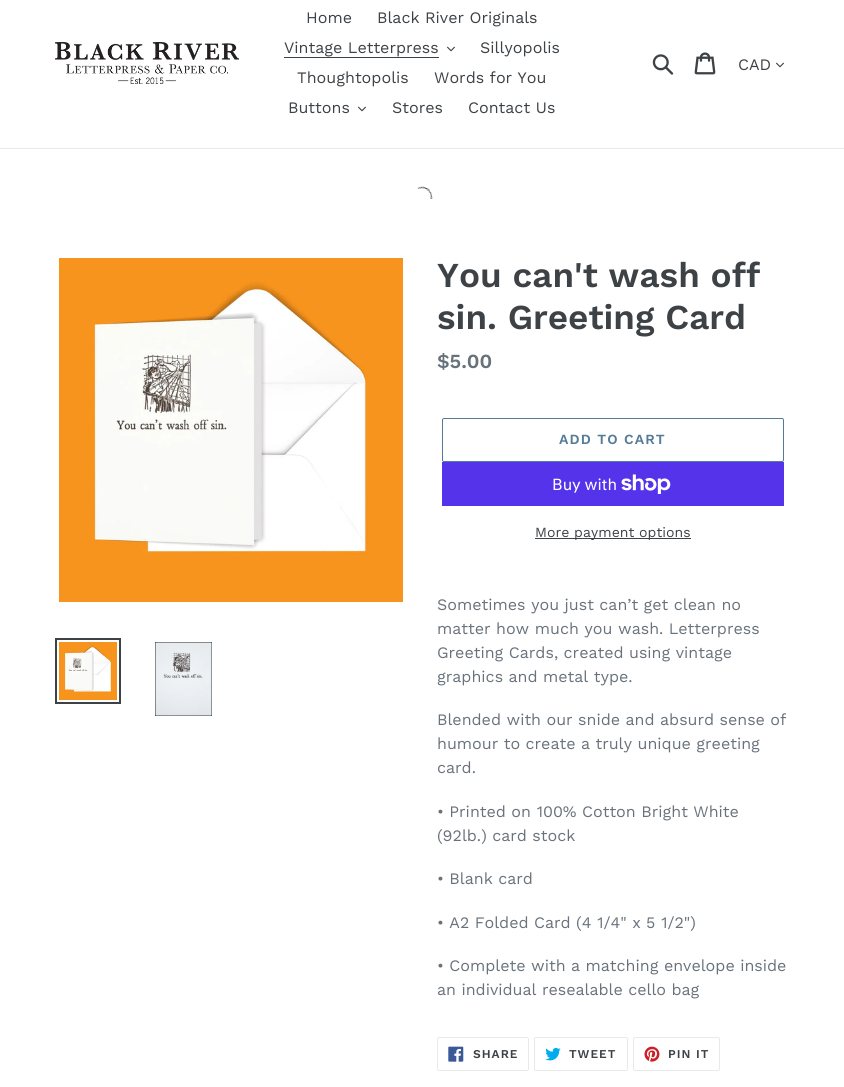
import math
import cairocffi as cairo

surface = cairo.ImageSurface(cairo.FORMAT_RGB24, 844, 1087)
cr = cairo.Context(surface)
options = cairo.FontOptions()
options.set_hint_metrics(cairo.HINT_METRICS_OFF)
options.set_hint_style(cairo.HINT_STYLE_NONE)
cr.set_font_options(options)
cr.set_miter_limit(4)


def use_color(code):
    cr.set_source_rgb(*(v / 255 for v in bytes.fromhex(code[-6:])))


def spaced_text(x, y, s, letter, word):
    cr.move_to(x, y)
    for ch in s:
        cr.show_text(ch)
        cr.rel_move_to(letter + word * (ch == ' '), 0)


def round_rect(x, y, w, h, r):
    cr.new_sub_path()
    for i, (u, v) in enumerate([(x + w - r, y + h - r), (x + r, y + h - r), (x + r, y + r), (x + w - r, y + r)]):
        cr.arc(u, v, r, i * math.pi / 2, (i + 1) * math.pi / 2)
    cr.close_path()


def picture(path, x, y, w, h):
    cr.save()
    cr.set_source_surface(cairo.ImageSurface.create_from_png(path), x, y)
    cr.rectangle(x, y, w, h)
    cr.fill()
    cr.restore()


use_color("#ffffff")
cr.paint()
use_color("#e8e9eb")
cr.rectangle(0, 148, 844, 1)
cr.fill()
picture("img1.png", 55, 42, 184, 42)
cr.select_font_face("Work Sans")
cr.set_font_size(16)
use_color("#3d4246")
cr.move_to(306, 23)
cr.show_text("Home")
cr.move_to(377, 23)
cr.show_text("Black River Originals")
cr.move_to(284, 53)
cr.show_text("Vintage Letterpress")
cr.rectangle(284, 57, 155, 1)
cr.fill()
picture("img2.png", 447, 46, 8, 6)
cr.move_to(480, 53)
cr.show_text("Sillyopolis")
cr.move_to(297, 83)
cr.show_text("Thoughtopolis")
cr.move_to(434, 83)
cr.show_text("Words for You")
cr.move_to(288, 113)
cr.show_text("Buttons")
picture("img2.png", 358, 106, 8, 6)
cr.move_to(392, 113)
cr.show_text("Stores")
cr.move_to(468, 113)
cr.show_text("Contact Us")
picture("img3.png", 652, 54, 22, 21)
picture("img4.png", 694, 52, 22, 23)
cr.move_to(738, 70)
cr.show_text("CAD")
picture("img2.png", 776, 62, 8, 6)
picture("img5.png", 417, 186, 16, 13)
picture("img6.png", 59, 258, 344, 344)
cr.rectangle(56, 639, 64, 64)
cr.stroke()
picture("img7.png", 59, 642, 58, 58)
picture("img8.png", 155, 642, 57, 74)
cr.select_font_face("Work Sans SemiBold")
cr.set_font_size(35)
cr.move_to(437, 287)
cr.show_text("You can't wash off")
cr.move_to(437, 329)
cr.show_text("sin. Greeting Card")
cr.set_font_size(20)
use_color("#69727b")
cr.move_to(437, 368)
cr.show_text("$5.00")
round_rect(442.5, 418.5, 341, 43, 1.5)
use_color("#557b97")
cr.set_line_width(1)
cr.stroke()
cr.set_font_size(14)
spaced_text(559, 444, "ADD TO CART", 1.1, 0)
use_color("#5433eb")
cr.rectangle(442, 462, 342, 44)
cr.fill()
cr.select_font_face("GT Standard")
cr.set_font_size(16)
use_color("#ffffff")
cr.move_to(552, 490)
cr.show_text("Buy with")
picture("img9.png", 621, 474, 50, 20)
use_color("#3d4246")
cr.rectangle(535, 538, 156, 1)
cr.fill()
cr.select_font_face("Work Sans")
cr.set_font_size(14)
cr.move_to(535, 537)
cr.show_text("More payment options")
cr.set_font_size(16)
use_color("#69727b")
cr.move_to(437, 610)
cr.show_text("Sometimes you just can’t get clean no")
cr.move_to(437, 634)
cr.show_text("matter how much you wash. Letterpress")
cr.move_to(437, 658)
cr.show_text("Greeting Cards, created using vintage")
cr.move_to(437, 682)
cr.show_text("graphics and metal type.")
cr.move_to(437, 725)
cr.show_text("Blended with our snide and absurd sense of")
cr.move_to(437, 749)
cr.show_text("humour to create a truly unique greeting")
cr.move_to(437, 773)
cr.show_text("card.")
cr.move_to(437, 817)
cr.show_text("• Printed on 100% Cotton Bright White")
cr.move_to(437, 841)
cr.show_text("(92lb.) card stock")
cr.move_to(437, 884)
cr.show_text("• Blank card")
cr.move_to(437, 928)
cr.show_text("• A2 Folded Card (4 1/4\" x 5 1/2\")")
cr.move_to(437, 971)
cr.show_text("• Complete with a matching envelope inside")
cr.move_to(437, 995)
cr.show_text("an individual resealable cello bag")
round_rect(437.5, 1037.5, 91, 33, 1.5)
use_color("#e8e9eb")
cr.stroke()
picture("img10.png", 448, 1046, 16, 16)
cr.select_font_face("Work Sans SemiBold")
cr.set_font_size(12)
use_color("#3d4246")
spaced_text(473, 1058, "SHARE", 1, 0)
round_rect(534.5, 1037.5, 93, 33, 1.5)
use_color("#e8e9eb")
cr.stroke()
picture("img11.png", 545, 1047, 16, 14)
use_color("#3d4246")
spaced_text(569, 1058, "TWEET", 1, 0)
round_rect(633.5, 1037.5, 86, 33, 1.5)
use_color("#e8e9eb")
cr.stroke()
picture("img12.png", 644, 1046, 16, 16)
use_color("#3d4246")
spaced_text(668, 1058, "PIN IT", 1, 0)
surface.write_to_png("result.png")
